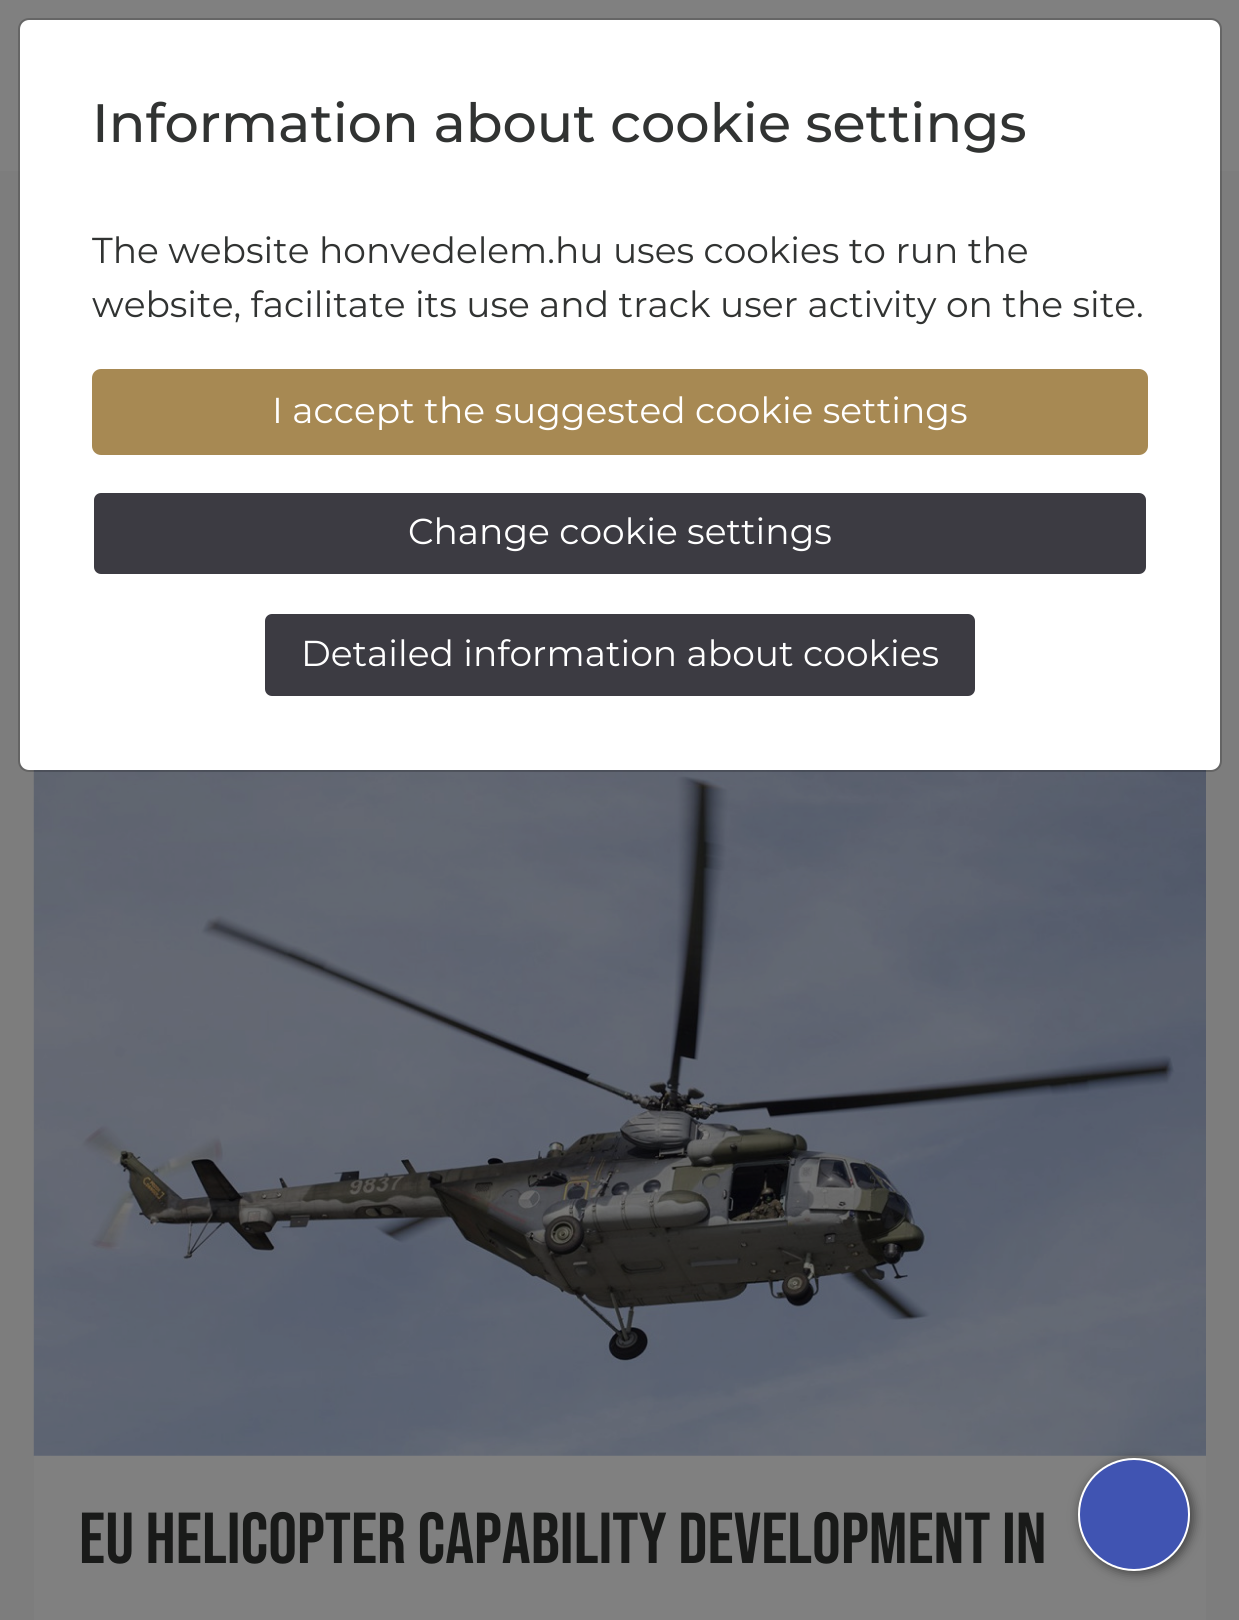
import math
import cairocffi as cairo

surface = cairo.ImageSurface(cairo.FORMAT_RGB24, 1239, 1620)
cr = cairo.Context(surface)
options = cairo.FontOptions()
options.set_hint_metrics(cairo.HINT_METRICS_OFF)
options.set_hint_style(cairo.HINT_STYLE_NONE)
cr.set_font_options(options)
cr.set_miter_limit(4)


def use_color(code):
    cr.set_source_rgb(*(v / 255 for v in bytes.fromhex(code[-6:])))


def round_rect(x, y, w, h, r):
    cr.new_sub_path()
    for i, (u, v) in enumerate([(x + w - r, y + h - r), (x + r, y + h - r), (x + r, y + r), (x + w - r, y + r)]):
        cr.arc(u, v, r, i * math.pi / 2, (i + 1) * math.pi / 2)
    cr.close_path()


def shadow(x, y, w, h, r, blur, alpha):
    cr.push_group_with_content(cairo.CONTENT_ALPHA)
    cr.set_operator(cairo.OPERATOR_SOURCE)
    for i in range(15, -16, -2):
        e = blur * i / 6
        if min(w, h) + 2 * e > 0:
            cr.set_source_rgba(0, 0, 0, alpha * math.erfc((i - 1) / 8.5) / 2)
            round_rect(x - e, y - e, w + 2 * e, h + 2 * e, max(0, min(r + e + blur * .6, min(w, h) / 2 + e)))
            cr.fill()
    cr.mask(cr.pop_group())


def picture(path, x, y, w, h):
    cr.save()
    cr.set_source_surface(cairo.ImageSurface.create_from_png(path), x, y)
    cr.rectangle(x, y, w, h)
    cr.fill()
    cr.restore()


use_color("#7d7d7d")
cr.paint()
use_color("#808080")
cr.rectangle(0, 0, 1239, 171)
cr.fill()
use_color("#ffffff")
round_rect(20, 20, 1200, 750, 9)
cr.fill()
use_color("#808080")
cr.rectangle(34, 1455, 1172, 165)
cr.fill()
picture("img1.png", 33, 770, 1173, 686)
round_rect(19, 19, 1202, 752, 10)
cr.set_source_rgba(0, 0, 0, 0.2)
cr.stroke()
cr.select_font_face("Montserrat Medium")
cr.set_font_size(54)
use_color("#313332")
cr.move_to(92, 142)
cr.show_text("Information about cookie settings")
cr.select_font_face("Montserrat")
cr.set_font_size(36)
cr.move_to(92, 263)
cr.show_text("The website honvedelem.hu uses cookies to run the")
cr.move_to(92, 317)
cr.show_text("website, facilitate its use and track user activity on the site.")
use_color("#a78953")
round_rect(93, 370, 1054, 84, 8)
cr.fill_preserve()
cr.stroke()
use_color("#ffffff")
cr.move_to(272, 423)
cr.show_text("I accept the suggested cookie settings")
use_color("#3c3b42")
round_rect(93, 492, 1054, 83, 8)
cr.fill_preserve()
use_color("#ffffff")
cr.stroke()
cr.move_to(408, 544)
cr.show_text("Change cookie settings")
use_color("#3c3b42")
round_rect(264, 613, 712, 84, 8)
cr.fill_preserve()
use_color("#ffffff")
cr.stroke()
cr.move_to(301, 666)
cr.show_text("Detailed information about cookies")
cr.select_font_face("Bebas Neue")
cr.set_font_size(72)
use_color("#191a19")
cr.move_to(79, 1563)
cr.show_text("EU helicopter capability development in")
use_color("#000000")
shadow(1080, 1460, 113, 113, 56.5, 5.5, 0.5)
use_color("#4054b2")
round_rect(1079, 1459, 110, 111, 55)
cr.fill_preserve()
use_color("#ffffff")
cr.stroke()
surface.write_to_png("result.png")
